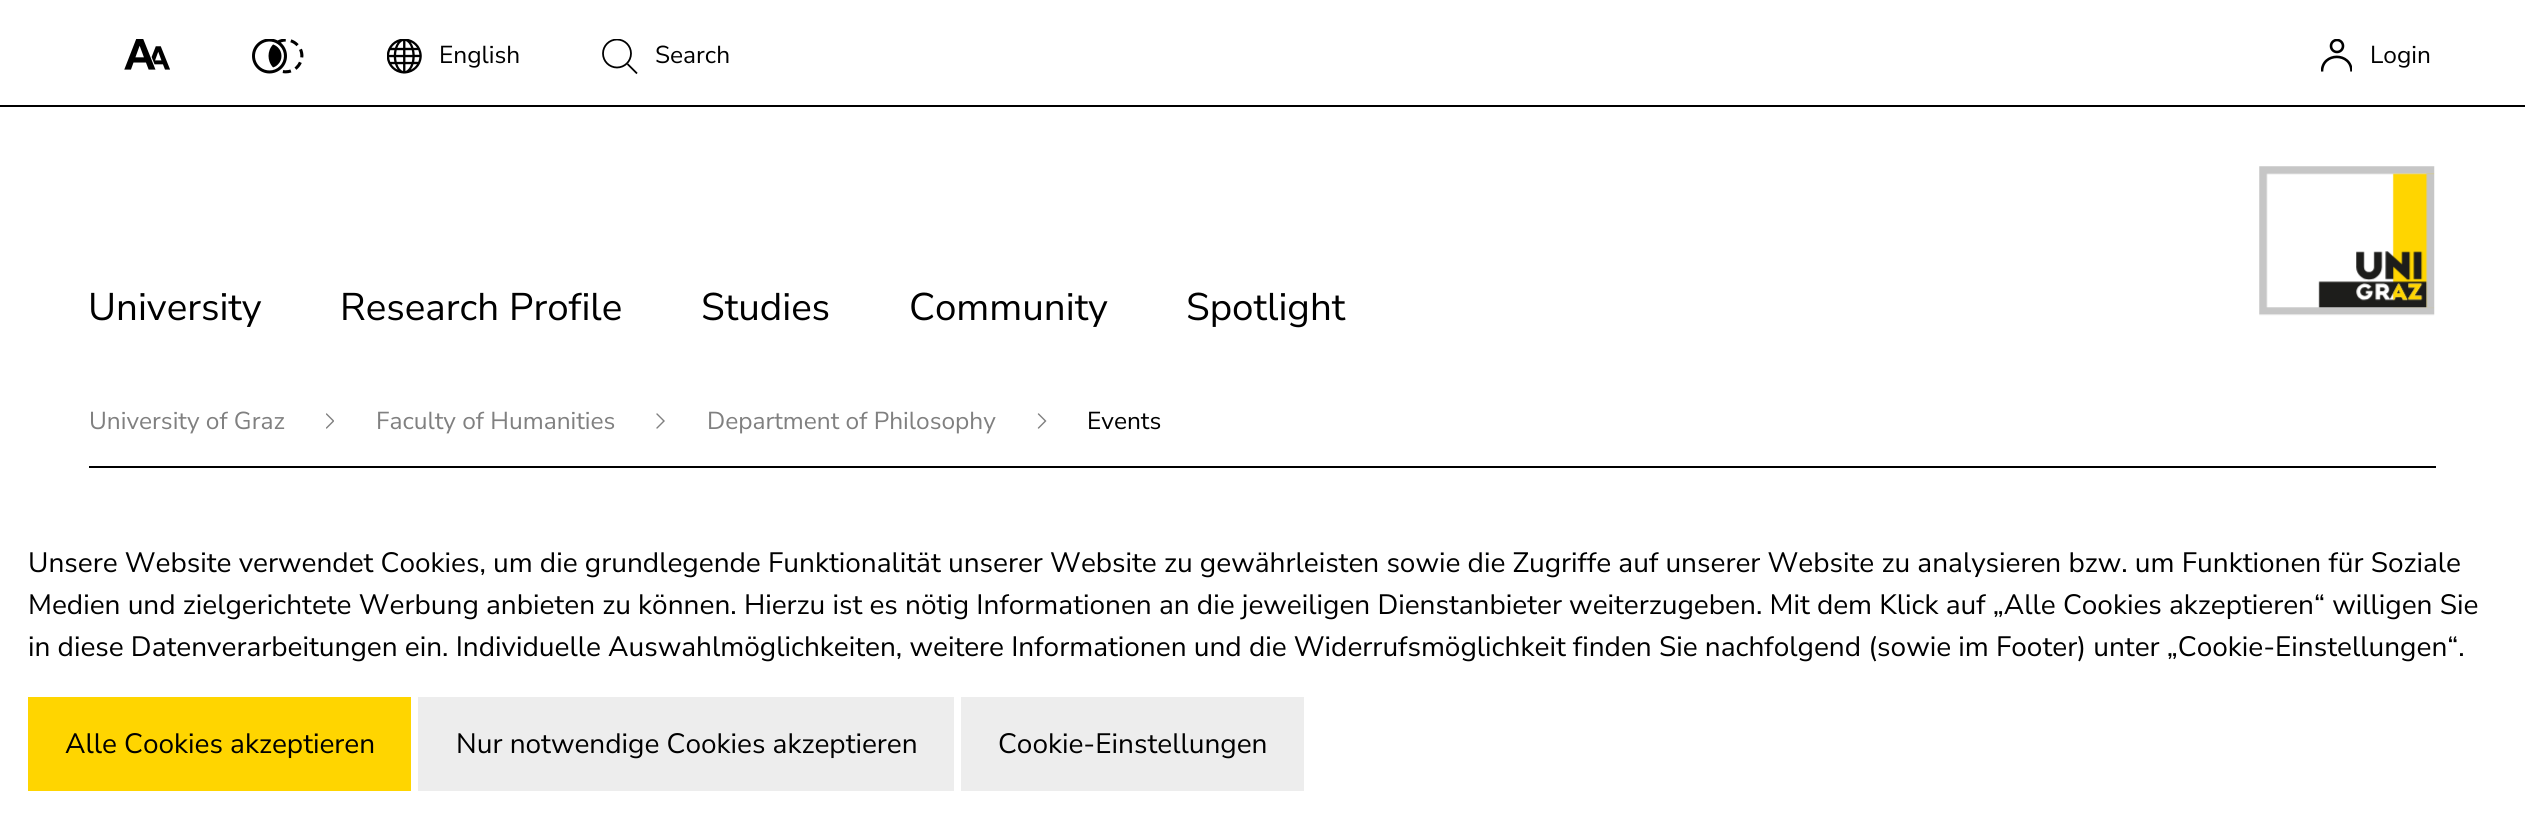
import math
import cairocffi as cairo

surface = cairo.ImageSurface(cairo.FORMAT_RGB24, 2525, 818)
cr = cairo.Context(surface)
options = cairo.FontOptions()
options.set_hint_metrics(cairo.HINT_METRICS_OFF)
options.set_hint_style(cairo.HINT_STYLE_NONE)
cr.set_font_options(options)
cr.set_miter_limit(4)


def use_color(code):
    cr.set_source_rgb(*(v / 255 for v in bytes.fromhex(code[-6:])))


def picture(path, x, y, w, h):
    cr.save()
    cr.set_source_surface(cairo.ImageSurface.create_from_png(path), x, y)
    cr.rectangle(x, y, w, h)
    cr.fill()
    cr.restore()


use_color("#ffffff")
cr.paint()
use_color("#000000")
cr.rectangle(0, 105, 2525, 2)
cr.fill()
picture("img1.png", 124, 39, 46, 31)
picture("img2.png", 252, 39, 52, 35)
picture("img3.png", 387, 39, 35, 35)
cr.select_font_face("Nunito Sans")
cr.set_font_size(24.5)
cr.move_to(439, 63)
cr.show_text("English")
cr.save()
cr.rectangle(602, 39, 35, 35)
cr.clip()
cr.arc(617, 53.5, 14, 0, 2 * math.pi)
cr.set_line_width(1.8)
cr.stroke()
cr.restore()
cr.new_path()
cr.move_to(627.5, 64)
cr.line_to(637, 73.5)
cr.set_line_width(1.8)
cr.stroke()
cr.move_to(655, 63)
cr.show_text("Search")
cr.save()
cr.rectangle(2321, 39, 31, 33)
cr.clip()
cr.new_path()
cr.move_to(2322, 71.5)
cr.curve_to(2322, 52, 2351.5, 52, 2351.5, 71.5)
cr.set_line_width(2.6)
cr.stroke()
cr.arc(2337, 46, 6, 0, 2 * math.pi)
cr.stroke()
cr.restore()
cr.move_to(2370, 63)
cr.show_text("Login")
cr.set_font_size(38.5)
cr.move_to(88, 320)
cr.show_text("University")
cr.move_to(340, 320)
cr.show_text("Research Profile")
cr.move_to(701, 320)
cr.show_text("Studies")
cr.move_to(909, 320)
cr.show_text("Community")
cr.move_to(1186, 320)
cr.show_text("Spotlight")
picture("img4.png", 2259, 166, 176, 150)
cr.rectangle(89, 466, 2347, 2)
cr.fill()
cr.set_font_size(24.5)
use_color("#808080")
cr.move_to(89, 429)
cr.show_text("University of Graz")
cr.save()
cr.rectangle(326, 413, 8, 16)
cr.clip()
cr.new_path()
cr.move_to(326.5, 428)
cr.line_to(333.5, 421)
cr.line_to(326.5, 414)
cr.set_line_width(1.4)
cr.set_line_cap(cairo.LINE_CAP_ROUND)
cr.stroke()
cr.restore()
cr.move_to(376, 429)
cr.show_text("Faculty of Humanities")
cr.new_path()
cr.move_to(657, 428)
cr.line_to(664, 421)
cr.line_to(657, 414)
cr.set_line_width(1.4)
cr.set_line_cap(cairo.LINE_CAP_ROUND)
cr.stroke()
cr.move_to(707, 429)
cr.show_text("Department of Philosophy")
cr.new_path()
cr.move_to(1038.5, 428)
cr.line_to(1045.5, 421)
cr.line_to(1038.5, 414)
cr.stroke()
use_color("#000000")
cr.move_to(1087, 429)
cr.show_text("Events")
cr.set_font_size(28)
cr.move_to(28, 572)
cr.show_text("Unsere Website verwendet Cookies, um die grundlegende Funktionalität unserer Website zu gewährleisten sowie die Zugriffe auf unserer Website zu analysieren bzw. um Funktionen für Soziale")
cr.move_to(28, 614)
cr.show_text("Medien und zielgerichtete Werbung anbieten zu können. Hierzu ist es nötig Informationen an die jeweiligen Dienstanbieter weiterzugeben. Mit dem Klick auf „Alle Cookies akzeptieren“ willigen Sie")
cr.move_to(28, 656)
cr.show_text("in diese Datenverarbeitungen ein. Individuelle Auswahlmöglichkeiten, weitere Informationen und die Widerrufsmöglichkeit finden Sie nachfolgend (sowie im Footer) unter „Cookie-Einstellungen“.")
use_color("#ffd500")
cr.rectangle(28, 697, 383, 94)
cr.fill()
use_color("#000000")
cr.move_to(65, 753)
cr.show_text("Alle Cookies akzeptieren")
use_color("#ededed")
cr.rectangle(418, 697, 536, 94)
cr.fill()
use_color("#000000")
cr.move_to(456, 753)
cr.show_text("Nur notwendige Cookies akzeptieren")
use_color("#ededed")
cr.rectangle(961, 697, 343, 94)
cr.fill()
use_color("#000000")
cr.move_to(998, 753)
cr.show_text("Cookie-Einstellungen")
surface.write_to_png("result.png")
